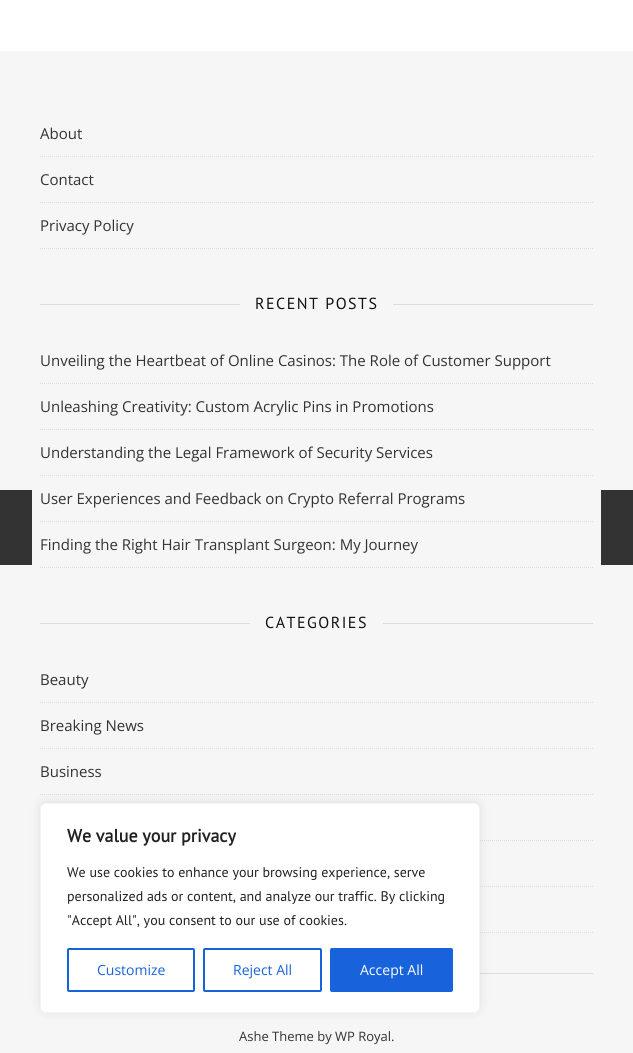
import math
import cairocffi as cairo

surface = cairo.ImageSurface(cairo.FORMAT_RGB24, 633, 1053)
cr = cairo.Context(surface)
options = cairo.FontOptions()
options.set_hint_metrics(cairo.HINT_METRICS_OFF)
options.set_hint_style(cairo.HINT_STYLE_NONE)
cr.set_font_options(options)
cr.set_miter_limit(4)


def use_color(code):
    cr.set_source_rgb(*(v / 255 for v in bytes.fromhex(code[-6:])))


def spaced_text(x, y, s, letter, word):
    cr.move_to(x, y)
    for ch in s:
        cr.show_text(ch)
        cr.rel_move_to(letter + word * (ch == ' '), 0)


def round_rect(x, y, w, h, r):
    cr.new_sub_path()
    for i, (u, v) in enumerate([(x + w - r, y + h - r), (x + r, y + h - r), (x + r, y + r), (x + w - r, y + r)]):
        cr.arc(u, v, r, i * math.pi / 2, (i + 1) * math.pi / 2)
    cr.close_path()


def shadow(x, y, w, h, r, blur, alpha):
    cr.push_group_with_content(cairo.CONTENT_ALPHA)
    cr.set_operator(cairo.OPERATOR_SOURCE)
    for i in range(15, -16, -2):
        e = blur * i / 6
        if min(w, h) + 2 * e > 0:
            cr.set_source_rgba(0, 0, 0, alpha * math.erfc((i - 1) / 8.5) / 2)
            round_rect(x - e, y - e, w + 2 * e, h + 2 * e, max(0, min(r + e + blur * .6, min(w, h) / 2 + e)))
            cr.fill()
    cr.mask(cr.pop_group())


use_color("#ffffff")
cr.paint()
use_color("#f6f6f6")
cr.rectangle(0, 51, 633, 1002)
cr.fill()
use_color("#e0dbdb")
cr.rectangle(480, 973, 113, 1)
cr.fill()
cr.new_path()
cr.move_to(40, 156.5)
cr.line_to(593, 156.5)
cr.set_line_width(1)
cr.set_dash([1, 1])
cr.stroke()
cr.select_font_face("Open Sans")
cr.set_font_size(15)
use_color("#333333")
cr.move_to(40, 139)
cr.show_text("About")
cr.new_path()
cr.move_to(40, 202.5)
cr.line_to(593, 202.5)
use_color("#e0dbdb")
cr.stroke()
use_color("#333333")
cr.move_to(40, 185)
cr.show_text("Contact")
cr.new_path()
cr.move_to(40, 248.5)
cr.line_to(593, 248.5)
use_color("#e0dbdb")
cr.stroke()
use_color("#333333")
cr.move_to(40, 231)
cr.show_text("Privacy Policy")
use_color("#e0dbdb")
cr.rectangle(40, 304, 200, 1)
cr.fill()
cr.select_font_face("PT Sans")
cr.set_font_size(16)
use_color("#111111")
spaced_text(255, 309, "RECENT POSTS", 1.5, 0)
use_color("#e0dbdb")
cr.rectangle(393, 304, 200, 1)
cr.fill()
cr.new_path()
cr.move_to(40, 383.5)
cr.line_to(593, 383.5)
cr.stroke()
cr.select_font_face("Open Sans")
cr.set_font_size(15)
use_color("#333333")
cr.move_to(40, 366)
cr.show_text("Unveiling the Heartbeat of Online Casinos: The Role of Customer Support")
cr.new_path()
cr.move_to(40, 429.5)
cr.line_to(593, 429.5)
use_color("#e0dbdb")
cr.stroke()
use_color("#333333")
cr.move_to(40, 412)
cr.show_text("Unleashing Creativity: Custom Acrylic Pins in Promotions")
cr.new_path()
cr.move_to(40, 475.5)
cr.line_to(593, 475.5)
use_color("#e0dbdb")
cr.stroke()
use_color("#333333")
cr.move_to(40, 458)
cr.show_text("Understanding the Legal Framework of Security Services")
cr.new_path()
cr.move_to(40, 521.5)
cr.line_to(593, 521.5)
use_color("#e0dbdb")
cr.stroke()
use_color("#333333")
cr.move_to(40, 504)
cr.show_text("User Experiences and Feedback on Crypto Referral Programs")
cr.new_path()
cr.move_to(40, 567.5)
cr.line_to(593, 567.5)
use_color("#e0dbdb")
cr.stroke()
use_color("#333333")
cr.move_to(40, 550)
cr.show_text("Finding the Right Hair Transplant Surgeon: My Journey")
use_color("#e0dbdb")
cr.rectangle(40, 623, 210, 1)
cr.fill()
cr.select_font_face("PT Sans")
cr.set_font_size(16)
use_color("#111111")
spaced_text(265, 628, "CATEGORIES", 1.5, 0)
use_color("#e0dbdb")
cr.rectangle(383, 623, 210, 1)
cr.fill()
cr.new_path()
cr.move_to(40, 702.5)
cr.line_to(593, 702.5)
cr.stroke()
cr.select_font_face("Open Sans")
cr.set_font_size(15)
use_color("#333333")
cr.move_to(40, 685)
cr.show_text("Beauty")
cr.new_path()
cr.move_to(40, 748.5)
cr.line_to(593, 748.5)
use_color("#e0dbdb")
cr.stroke()
use_color("#333333")
cr.move_to(40, 731)
cr.show_text("Breaking News")
cr.new_path()
cr.move_to(40, 794.5)
cr.line_to(593, 794.5)
use_color("#e0dbdb")
cr.stroke()
use_color("#333333")
cr.move_to(40, 777)
cr.show_text("Business")
cr.new_path()
cr.move_to(40, 840.5)
cr.line_to(593, 840.5)
use_color("#e0dbdb")
cr.stroke()
cr.new_path()
cr.move_to(40, 886.5)
cr.line_to(593, 886.5)
cr.stroke()
cr.new_path()
cr.move_to(40, 932.5)
cr.line_to(593, 932.5)
cr.stroke()
cr.set_font_size(13)
use_color("#333333")
cr.move_to(239, 1041)
cr.show_text("Ashe Theme by WP Royal.")
cr.rectangle(0, 490, 32, 75)
cr.fill()
cr.rectangle(601, 490, 32, 75)
cr.fill()
use_color("#acabab")
shadow(40, 802, 440, 210, 6, 5, 0.3)
use_color("#ffffff")
round_rect(40.5, 803.5, 439, 209, 5.5)
cr.fill_preserve()
use_color("#f4f4f4")
cr.set_dash([])
cr.stroke()
cr.select_font_face("PT Sans", cairo.FONT_SLANT_NORMAL, cairo.FONT_WEIGHT_BOLD)
cr.set_font_size(18)
use_color("#212121")
cr.move_to(67, 842)
cr.show_text("We value your privacy")
cr.select_font_face("PT Sans")
cr.set_font_size(14)
cr.move_to(67, 877)
cr.show_text("We use cookies to enhance your browsing experience, serve")
cr.move_to(67, 901)
cr.show_text("personalized ads or content, and analyze our traffic. By clicking")
cr.move_to(67, 925)
cr.show_text("\"Accept All\", you consent to our use of cookies.")
round_rect(68, 949, 126, 42, 1)
use_color("#1863dc")
cr.set_line_width(2)
cr.stroke()
cr.select_font_face("Open Sans")
cr.move_to(97, 975)
cr.show_text("Customize")
round_rect(204, 949, 117, 42, 1)
cr.stroke()
cr.move_to(233, 975)
cr.show_text("Reject All")
round_rect(331, 949, 121, 42, 1)
cr.fill_preserve()
cr.stroke()
use_color("#ffffff")
cr.move_to(360, 975)
cr.show_text("Accept All")
surface.write_to_png("result.png")
